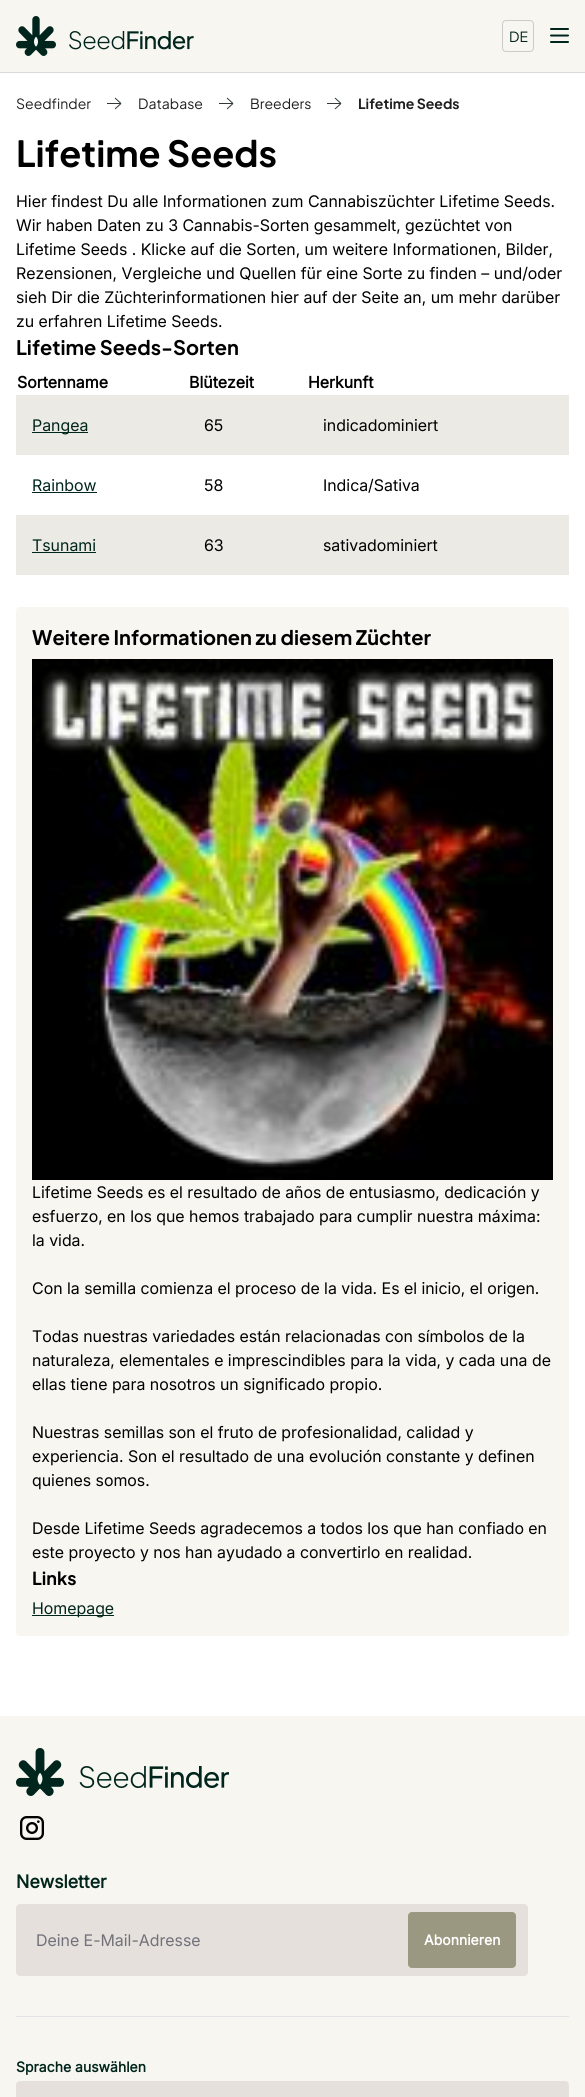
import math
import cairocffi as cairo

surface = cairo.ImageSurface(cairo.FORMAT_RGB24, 585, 2097)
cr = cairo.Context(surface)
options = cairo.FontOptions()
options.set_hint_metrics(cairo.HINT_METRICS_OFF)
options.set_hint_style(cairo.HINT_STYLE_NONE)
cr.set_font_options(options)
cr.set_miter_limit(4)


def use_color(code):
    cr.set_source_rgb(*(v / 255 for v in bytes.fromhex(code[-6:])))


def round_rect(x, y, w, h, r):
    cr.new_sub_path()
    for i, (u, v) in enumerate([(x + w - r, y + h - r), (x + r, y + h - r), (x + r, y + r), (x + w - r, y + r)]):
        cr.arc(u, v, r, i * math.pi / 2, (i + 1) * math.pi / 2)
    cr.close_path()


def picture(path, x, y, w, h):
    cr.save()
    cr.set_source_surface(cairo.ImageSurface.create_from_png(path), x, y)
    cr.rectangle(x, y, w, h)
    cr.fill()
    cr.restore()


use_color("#ffffff")
cr.paint()
use_color("#f7f6f1")
cr.rectangle(0, 0, 585, 72)
cr.fill()
use_color("#dadada")
cr.rectangle(0, 72, 585, 1)
cr.fill()
picture("img1.png", 16, 16, 178, 40)
round_rect(502.5, 20.5, 31, 31, 3.5)
use_color("#cccbcb")
cr.set_line_width(1)
cr.stroke()
cr.select_font_face("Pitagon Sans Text")
cr.set_font_size(14)
use_color("#00251c")
cr.move_to(509, 42)
cr.show_text("DE")
picture("img2.png", 550, 28, 19, 15)
use_color("#1e1e1e")
cr.move_to(16, 109)
cr.show_text("Seedfinder")
cr.new_path()
cr.move_to(115, 109)
cr.line_to(121, 103.5)
cr.move_to(121, 103.5)
cr.line_to(115, 98)
cr.move_to(121, 103.5)
cr.line_to(107, 103.5)
use_color("#313935")
cr.stroke()
use_color("#1e1e1e")
cr.move_to(138, 109)
cr.show_text("Database")
cr.new_path()
cr.move_to(227, 109)
cr.line_to(233, 103.5)
cr.move_to(233, 103.5)
cr.line_to(227, 98)
cr.move_to(233, 103.5)
cr.line_to(219, 103.5)
use_color("#313935")
cr.stroke()
use_color("#1e1e1e")
cr.move_to(250, 109)
cr.show_text("Breeders")
cr.new_path()
cr.move_to(335, 109)
cr.line_to(341, 103.5)
cr.move_to(341, 103.5)
cr.line_to(335, 98)
cr.move_to(341, 103.5)
cr.line_to(327, 103.5)
use_color("#313935")
cr.stroke()
cr.select_font_face("Pitagon Sans Text", cairo.FONT_SLANT_NORMAL, cairo.FONT_WEIGHT_BOLD)
use_color("#1e1e1e")
cr.move_to(358, 109)
cr.show_text("Lifetime Seeds")
cr.set_font_size(36)
use_color("#000000")
cr.move_to(16, 167)
cr.show_text("Lifetime Seeds")
cr.select_font_face("Inter")
cr.set_font_size(16)
cr.move_to(16, 207)
cr.show_text("Hier findest Du alle Informationen zum Cannabiszüchter Lifetime Seeds.")
cr.move_to(16, 231)
cr.show_text("Wir haben Daten zu 3 Cannabis-Sorten gesammelt, gezüchtet von")
cr.move_to(16, 255)
cr.show_text("Lifetime Seeds . Klicke auf die Sorten, um weitere Informationen, Bilder,")
cr.move_to(16, 279)
cr.show_text("Rezensionen, Vergleiche und Quellen für eine Sorte zu finden – und/oder")
cr.move_to(16, 303)
cr.show_text("sieh Dir die Züchterinformationen hier auf der Seite an, um mehr darüber")
cr.move_to(16, 327)
cr.show_text("zu erfahren Lifetime Seeds.")
cr.select_font_face("Pitagon Sans Text", cairo.FONT_SLANT_NORMAL, cairo.FONT_WEIGHT_BOLD)
cr.set_font_size(20)
cr.move_to(16, 355)
cr.show_text("Lifetime Seeds-Sorten")
cr.select_font_face("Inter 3", cairo.FONT_SLANT_NORMAL, cairo.FONT_WEIGHT_BOLD)
cr.set_font_size(16)
cr.move_to(17, 388)
cr.show_text("Sortenname")
cr.move_to(189, 388)
cr.show_text("Blütezeit")
cr.move_to(308, 388)
cr.show_text("Herkunft")
use_color("#ebeae4")
cr.rectangle(16, 395, 553, 60)
cr.fill()
use_color("#00251c")
cr.rectangle(32, 432, 56, 1)
cr.fill()
cr.select_font_face("Inter")
cr.move_to(32, 431)
cr.show_text("Pangea")
use_color("#000000")
cr.move_to(204, 431)
cr.show_text("65")
cr.move_to(323, 431)
cr.show_text("indicadominiert")
use_color("#00251c")
cr.move_to(32, 491)
cr.show_text("Rainbow")
cr.rectangle(32, 492, 65, 1)
cr.fill()
use_color("#000000")
cr.move_to(204, 491)
cr.show_text("58")
cr.move_to(323, 491)
cr.show_text("Indica/Sativa")
use_color("#ebeae4")
cr.rectangle(16, 515, 553, 60)
cr.fill()
use_color("#00251c")
cr.move_to(32, 551)
cr.show_text("Tsunami")
cr.rectangle(32, 552, 64, 1)
cr.fill()
use_color("#000000")
cr.move_to(204, 551)
cr.show_text("63")
cr.move_to(323, 551)
cr.show_text("sativadominiert")
use_color("#f7f6f1")
round_rect(16, 607, 553, 1029, 4)
cr.fill()
cr.select_font_face("Pitagon Sans Text", cairo.FONT_SLANT_NORMAL, cairo.FONT_WEIGHT_BOLD)
cr.set_font_size(20)
use_color("#000000")
cr.move_to(32, 645)
cr.show_text("Weitere Informationen zu diesem Züchter")
picture("img3.png", 32, 659, 521, 521)
cr.select_font_face("Inter")
cr.set_font_size(16)
cr.move_to(32, 1198)
cr.show_text("Lifetime Seeds es el resultado de años de entusiasmo, dedicación y")
cr.move_to(32, 1222)
cr.show_text("esfuerzo, en los que hemos trabajado para cumplir nuestra máxima:")
cr.move_to(32, 1246)
cr.show_text("la vida.")
cr.move_to(32, 1294)
cr.show_text("Con la semilla comienza el proceso de la vida. Es el inicio, el origen.")
cr.move_to(32, 1342)
cr.show_text("Todas nuestras variedades están relacionadas con símbolos de la")
cr.move_to(32, 1366)
cr.show_text("naturaleza, elementales e imprescindibles para la vida, y cada una de")
cr.move_to(32, 1390)
cr.show_text("ellas tiene para nosotros un significado propio.")
cr.move_to(32, 1438)
cr.show_text("Nuestras semillas son el fruto de profesionalidad, calidad y")
cr.move_to(32, 1462)
cr.show_text("experiencia. Son el resultado de una evolución constante y definen")
cr.move_to(32, 1486)
cr.show_text("quienes somos.")
cr.move_to(32, 1534)
cr.show_text("Desde Lifetime Seeds agradecemos a todos los que han confiado en")
cr.move_to(32, 1558)
cr.show_text("este proyecto y nos han ayudado a convertirlo en realidad.")
cr.select_font_face("Pitagon Sans Text", cairo.FONT_SLANT_NORMAL, cairo.FONT_WEIGHT_BOLD)
cr.set_font_size(18)
cr.move_to(32, 1585)
cr.show_text("Links")
use_color("#00251c")
cr.rectangle(32, 1615, 82, 1)
cr.fill()
cr.select_font_face("Inter")
cr.set_font_size(16)
cr.move_to(32, 1614)
cr.show_text("Homepage")
use_color("#f7f6f1")
cr.rectangle(0, 1716, 585, 381)
cr.fill()
picture("img4.png", 16, 1748, 213, 48)
picture("img5.png", 20, 1816, 24, 24)
cr.select_font_face("Inter", cairo.FONT_SLANT_NORMAL, cairo.FONT_WEIGHT_BOLD)
cr.set_font_size(18)
use_color("#00251c")
cr.move_to(16, 1888)
cr.show_text("Newsletter")
use_color("#e5e0db")
round_rect(16, 1904, 512, 72, 4)
cr.fill()
cr.select_font_face("Inter")
cr.set_font_size(16)
use_color("#71717a")
cr.move_to(36, 1946)
cr.show_text("Deine E-Mail-Adresse")
use_color("#9a9881")
round_rect(408, 1912, 108, 56, 4)
cr.fill()
cr.select_font_face("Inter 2", cairo.FONT_SLANT_NORMAL, cairo.FONT_WEIGHT_BOLD)
cr.set_font_size(14)
use_color("#ffffff")
cr.move_to(424, 1945)
cr.show_text("Abonnieren")
use_color("#e4e4e7")
cr.rectangle(16, 2016, 553, 1)
cr.fill()
use_color("#00251c")
cr.move_to(16, 2072)
cr.show_text("Sprache auswählen")
use_color("#e5e0db")
round_rect(16, 2081, 553, 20, 4)
cr.fill()
surface.write_to_png("result.png")
